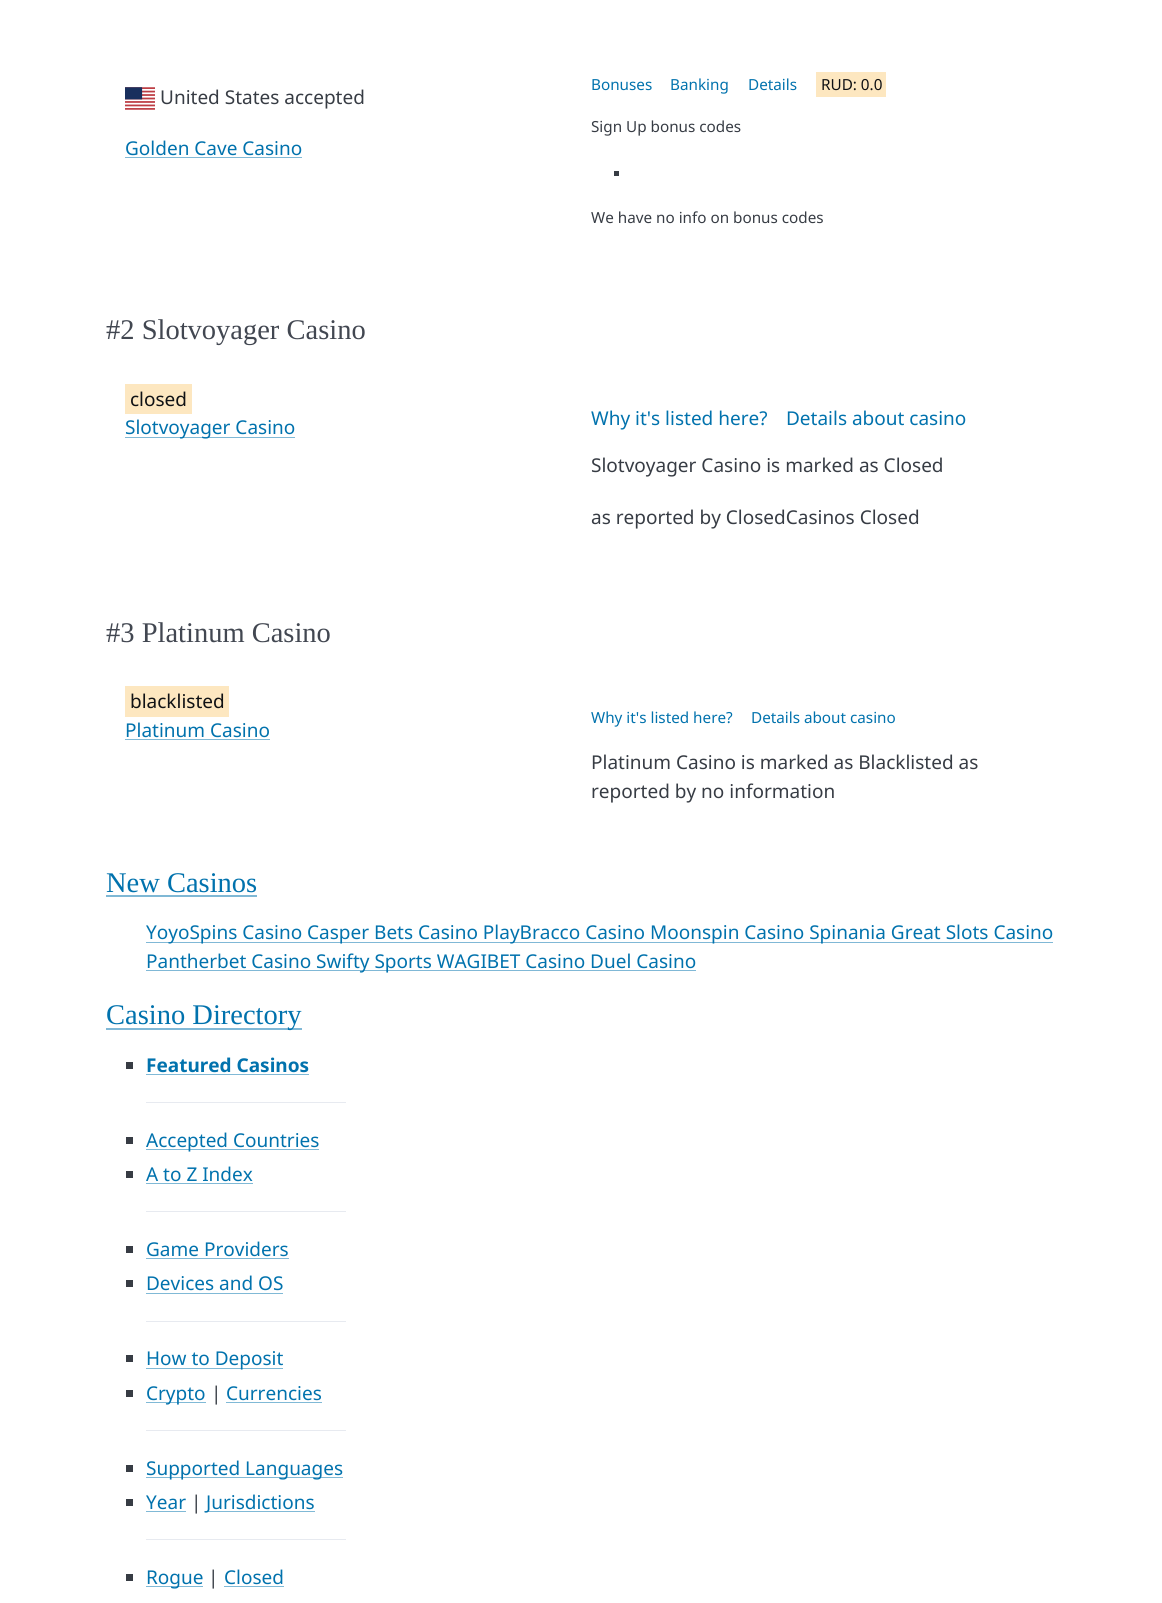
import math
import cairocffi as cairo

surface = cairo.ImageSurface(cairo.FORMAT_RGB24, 1162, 1603)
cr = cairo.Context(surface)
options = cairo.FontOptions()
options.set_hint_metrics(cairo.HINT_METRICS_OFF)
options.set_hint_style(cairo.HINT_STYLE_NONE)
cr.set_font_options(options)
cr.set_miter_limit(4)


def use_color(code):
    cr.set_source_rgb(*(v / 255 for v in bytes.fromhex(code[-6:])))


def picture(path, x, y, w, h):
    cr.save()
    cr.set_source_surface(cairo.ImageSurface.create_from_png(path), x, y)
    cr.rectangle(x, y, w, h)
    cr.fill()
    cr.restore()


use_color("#ffffff")
cr.paint()
picture("img1.png", 125, 87, 30, 23)
cr.select_font_face("Noto Sans")
cr.set_font_size(19)
use_color("#373c44")
cr.move_to(160, 104)
cr.show_text("United States accepted")
use_color("#0172ad")
cr.move_to(125, 155)
cr.show_text("Golden Cave Casino")
use_color("#80b9d6")
cr.rectangle(125, 157, 177, 1)
cr.fill()
cr.set_font_size(15.25)
use_color("#0172ad")
cr.move_to(591, 90)
cr.show_text("Bonuses")
cr.move_to(670, 90)
cr.show_text("Banking")
cr.move_to(748, 90)
cr.show_text("Details")
use_color("#fde7c0")
cr.rectangle(816, 72, 70, 25)
cr.fill()
use_color("#0f1114")
cr.move_to(821, 90)
cr.show_text("RUD: 0.0")
use_color("#373c44")
cr.move_to(591, 132)
cr.show_text("Sign Up bonus codes")
cr.rectangle(614, 171, 5, 5)
cr.fill()
cr.move_to(591, 223)
cr.show_text("We have no info on bonus codes")
cr.select_font_face("Liberation Serif")
cr.set_font_size(28.5)
use_color("#424751")
cr.move_to(106, 339)
cr.show_text("#2 Slotvoyager Casino")
use_color("#fde7c0")
cr.rectangle(125, 384, 67, 30)
cr.fill()
cr.select_font_face("Noto Sans")
cr.set_font_size(19)
use_color("#0f1114")
cr.move_to(130, 406)
cr.show_text("closed")
use_color("#80b9d6")
cr.rectangle(125, 437, 170, 1)
cr.fill()
use_color("#0172ad")
cr.move_to(125, 434)
cr.show_text("Slotvoyager Casino")
cr.move_to(591, 425)
cr.show_text("Why it's listed here?")
cr.move_to(786, 425)
cr.show_text("Details about casino")
use_color("#373c44")
cr.move_to(591, 472)
cr.show_text("Slotvoyager Casino is marked as Closed")
cr.move_to(591, 524)
cr.show_text("as reported by ClosedCasinos Closed")
cr.select_font_face("Liberation Serif")
cr.set_font_size(28.5)
use_color("#424751")
cr.move_to(106, 642)
cr.show_text("#3 Platinum Casino")
use_color("#fde7c0")
cr.rectangle(125, 686, 104, 31)
cr.fill()
cr.select_font_face("Noto Sans")
cr.set_font_size(19)
use_color("#0f1114")
cr.move_to(130, 708)
cr.show_text("blacklisted")
use_color("#0172ad")
cr.move_to(125, 737)
cr.show_text("Platinum Casino")
use_color("#80b9d6")
cr.rectangle(125, 739, 145, 1)
cr.fill()
cr.set_font_size(15.25)
use_color("#0172ad")
cr.move_to(591, 723)
cr.show_text("Why it's listed here?")
cr.move_to(751, 723)
cr.show_text("Details about casino")
cr.set_font_size(19)
use_color("#373c44")
cr.move_to(591, 769)
cr.show_text("Platinum Casino is marked as Blacklisted as")
cr.move_to(591, 798)
cr.show_text("reported by no information")
cr.select_font_face("Liberation Serif")
cr.set_font_size(28.5)
use_color("#0172ad")
cr.move_to(106, 892)
cr.show_text("New Casinos")
use_color("#7fb8d5")
cr.rectangle(106, 895, 151, 2)
cr.fill()
use_color("#80b8d6")
cr.rectangle(146, 942, 907, 1)
cr.fill()
cr.select_font_face("Noto Sans")
cr.set_font_size(19)
use_color("#0172ad")
cr.move_to(146, 939)
cr.show_text("YoyoSpins Casino Casper Bets Casino PlayBracco Casino Moonspin Casino Spinania Great Slots Casino")
use_color("#80b8d6")
cr.rectangle(146, 970, 550, 1)
cr.fill()
use_color("#0172ad")
cr.move_to(146, 968)
cr.show_text("Pantherbet Casino Swifty Sports WAGIBET Casino Duel Casino")
use_color("#80b8d6")
cr.rectangle(106, 1028, 196, 2)
cr.fill()
cr.select_font_face("Liberation Serif")
cr.set_font_size(28.5)
use_color("#0172ad")
cr.move_to(106, 1024)
cr.show_text("Casino Directory")
use_color("#373c44")
cr.rectangle(126, 1062, 7, 7)
cr.fill()
cr.select_font_face("Noto Sans", cairo.FONT_SLANT_NORMAL, cairo.FONT_WEIGHT_BOLD)
cr.set_font_size(19)
use_color("#0172ad")
cr.move_to(146, 1072)
cr.show_text("Featured Casinos")
use_color("#80b9d6")
cr.rectangle(146, 1074, 163, 1)
cr.fill()
use_color("#e7eaf0")
cr.rectangle(146, 1102, 200, 1)
cr.fill()
use_color("#373c44")
cr.rectangle(126, 1137, 7, 7)
cr.fill()
use_color("#80b9d6")
cr.rectangle(146, 1149, 173, 1)
cr.fill()
cr.select_font_face("Noto Sans")
use_color("#0172ad")
cr.move_to(146, 1147)
cr.show_text("Accepted Countries")
use_color("#373c44")
cr.rectangle(126, 1171, 7, 7)
cr.fill()
use_color("#0172ad")
cr.move_to(146, 1181)
cr.show_text("A to Z Index")
use_color("#80b9d6")
cr.rectangle(146, 1183, 107, 1)
cr.fill()
use_color("#e7eaf0")
cr.rectangle(146, 1211, 200, 1)
cr.fill()
use_color("#373c44")
cr.rectangle(126, 1246, 7, 7)
cr.fill()
use_color("#0172ad")
cr.move_to(146, 1256)
cr.show_text("Game Providers")
use_color("#80b9d6")
cr.rectangle(146, 1258, 143, 1)
cr.fill()
use_color("#373c44")
cr.rectangle(126, 1280, 7, 7)
cr.fill()
use_color("#0172ad")
cr.move_to(146, 1290)
cr.show_text("Devices and OS")
use_color("#80b9d6")
cr.rectangle(146, 1293, 137, 1)
cr.fill()
use_color("#e7eaf0")
cr.rectangle(146, 1321, 200, 1)
cr.fill()
use_color("#373c44")
cr.rectangle(126, 1355, 7, 7)
cr.fill()
use_color("#80b9d6")
cr.rectangle(146, 1368, 137, 1)
cr.fill()
use_color("#0172ad")
cr.move_to(146, 1365)
cr.show_text("How to Deposit")
use_color("#373c44")
cr.rectangle(126, 1390, 7, 7)
cr.fill()
use_color("#80b9d6")
cr.rectangle(146, 1402, 60, 1)
cr.fill()
use_color("#0172ad")
cr.move_to(146, 1400)
cr.show_text("Crypto")
use_color("#373c44")
cr.move_to(211, 1400)
cr.show_text("|")
use_color("#0172ad")
cr.move_to(226, 1400)
cr.show_text("Currencies")
use_color("#80b9d6")
cr.rectangle(226, 1402, 96, 1)
cr.fill()
use_color("#e7eaf0")
cr.rectangle(146, 1430, 200, 1)
cr.fill()
use_color("#373c44")
cr.rectangle(126, 1465, 7, 7)
cr.fill()
use_color("#80b9d6")
cr.rectangle(146, 1477, 197, 1)
cr.fill()
use_color("#0172ad")
cr.move_to(146, 1475)
cr.show_text("Supported Languages")
use_color("#373c44")
cr.rectangle(126, 1499, 7, 7)
cr.fill()
use_color("#0172ad")
cr.move_to(146, 1509)
cr.show_text("Year")
use_color("#80b9d6")
cr.rectangle(146, 1511, 40, 1)
cr.fill()
use_color("#373c44")
cr.move_to(191, 1509)
cr.show_text("|")
use_color("#80b9d6")
cr.rectangle(206, 1511, 109, 1)
cr.fill()
use_color("#0172ad")
cr.move_to(206, 1509)
cr.show_text("Jurisdictions")
use_color("#e7eaf0")
cr.rectangle(146, 1539, 200, 1)
cr.fill()
use_color("#373c44")
cr.rectangle(126, 1574, 7, 7)
cr.fill()
use_color("#80b9d6")
cr.rectangle(146, 1586, 57, 1)
cr.fill()
use_color("#0172ad")
cr.move_to(146, 1584)
cr.show_text("Rogue")
use_color("#373c44")
cr.move_to(208, 1584)
cr.show_text("|")
use_color("#0172ad")
cr.move_to(224, 1584)
cr.show_text("Closed")
use_color("#80b9d6")
cr.rectangle(224, 1586, 60, 1)
cr.fill()
surface.write_to_png("result.png")
